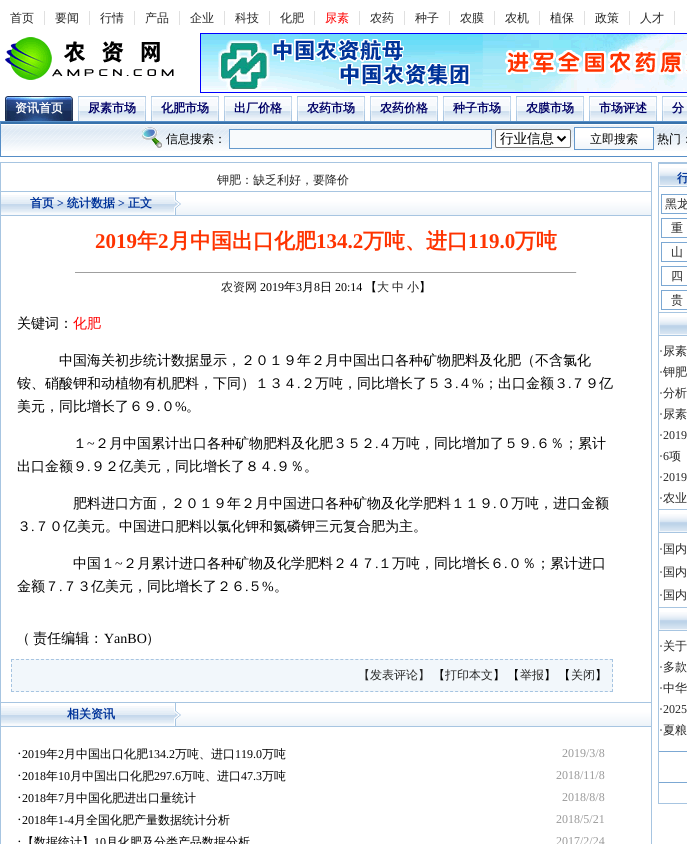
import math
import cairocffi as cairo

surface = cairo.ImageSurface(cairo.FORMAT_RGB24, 687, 844)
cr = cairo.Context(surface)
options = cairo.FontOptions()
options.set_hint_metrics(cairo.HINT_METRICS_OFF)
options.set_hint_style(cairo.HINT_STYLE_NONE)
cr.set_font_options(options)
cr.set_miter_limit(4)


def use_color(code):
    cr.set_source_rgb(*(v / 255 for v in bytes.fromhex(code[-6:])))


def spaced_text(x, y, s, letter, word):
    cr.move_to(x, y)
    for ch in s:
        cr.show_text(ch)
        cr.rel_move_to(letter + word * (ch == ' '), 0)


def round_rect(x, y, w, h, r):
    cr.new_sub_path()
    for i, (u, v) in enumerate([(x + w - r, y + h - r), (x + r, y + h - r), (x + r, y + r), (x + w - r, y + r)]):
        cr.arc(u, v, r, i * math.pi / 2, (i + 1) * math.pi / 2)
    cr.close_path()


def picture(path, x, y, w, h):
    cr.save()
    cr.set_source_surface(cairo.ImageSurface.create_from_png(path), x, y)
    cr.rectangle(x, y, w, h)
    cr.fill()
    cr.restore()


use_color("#ffffff")
cr.paint()
use_color("#e0e0e0")
cr.rectangle(44, 11, 1, 14)
cr.fill()
cr.select_font_face("WenQuanYi Zen Hei Medium")
cr.set_font_size(12)
use_color("#262626")
cr.move_to(10, 22)
cr.show_text("首页")
use_color("#e0e0e0")
cr.rectangle(89, 11, 1, 14)
cr.fill()
use_color("#262626")
cr.move_to(55, 22)
cr.show_text("要闻")
use_color("#e0e0e0")
cr.rectangle(134, 11, 1, 14)
cr.fill()
use_color("#262626")
cr.move_to(100, 22)
cr.show_text("行情")
use_color("#e0e0e0")
cr.rectangle(179, 11, 1, 14)
cr.fill()
use_color("#262626")
cr.move_to(145, 22)
cr.show_text("产品")
use_color("#e0e0e0")
cr.rectangle(224, 11, 1, 14)
cr.fill()
use_color("#262626")
cr.move_to(190, 22)
cr.show_text("企业")
use_color("#e0e0e0")
cr.rectangle(269, 11, 1, 14)
cr.fill()
use_color("#262626")
cr.move_to(235, 22)
cr.show_text("科技")
use_color("#e0e0e0")
cr.rectangle(314, 11, 1, 14)
cr.fill()
use_color("#262626")
cr.move_to(280, 22)
cr.show_text("化肥")
use_color("#e0e0e0")
cr.rectangle(359, 11, 1, 14)
cr.fill()
use_color("#ff0000")
cr.move_to(325, 22)
cr.show_text("尿素")
use_color("#e0e0e0")
cr.rectangle(404, 11, 1, 14)
cr.fill()
use_color("#262626")
cr.move_to(370, 22)
cr.show_text("农药")
use_color("#e0e0e0")
cr.rectangle(449, 11, 1, 14)
cr.fill()
use_color("#262626")
cr.move_to(415, 22)
cr.show_text("种子")
use_color("#e0e0e0")
cr.rectangle(494, 11, 1, 14)
cr.fill()
use_color("#262626")
cr.move_to(460, 22)
cr.show_text("农膜")
use_color("#e0e0e0")
cr.rectangle(539, 11, 1, 14)
cr.fill()
use_color("#262626")
cr.move_to(505, 22)
cr.show_text("农机")
use_color("#e0e0e0")
cr.rectangle(584, 11, 1, 14)
cr.fill()
use_color("#262626")
cr.move_to(550, 22)
cr.show_text("植保")
use_color("#e0e0e0")
cr.rectangle(629, 11, 1, 14)
cr.fill()
use_color("#262626")
cr.move_to(595, 22)
cr.show_text("政策")
use_color("#e0e0e0")
cr.rectangle(674, 11, 1, 14)
cr.fill()
use_color("#262626")
cr.move_to(640, 22)
cr.show_text("人才")
picture("img1.png", 5, 37, 169, 43)
picture("img2.png", 200, 33, 487, 60)
picture("img3.png", 5, 96, 68, 25)
cr.select_font_face("WenQuanYi Zen Hei", cairo.FONT_SLANT_NORMAL, cairo.FONT_WEIGHT_BOLD)
use_color("#ffffff")
cr.move_to(15, 112)
cr.show_text("资讯首页")
picture("img4.png", 78, 96, 68, 25)
use_color("#000066")
cr.move_to(88, 112)
cr.show_text("尿素市场")
picture("img4.png", 151, 96, 68, 25)
cr.move_to(161, 112)
cr.show_text("化肥市场")
picture("img4.png", 224, 96, 68, 25)
cr.move_to(234, 112)
cr.show_text("出厂价格")
picture("img4.png", 297, 96, 68, 25)
cr.move_to(307, 112)
cr.show_text("农药市场")
picture("img4.png", 370, 96, 68, 25)
cr.move_to(380, 112)
cr.show_text("农药价格")
picture("img4.png", 443, 96, 68, 25)
cr.move_to(453, 112)
cr.show_text("种子市场")
picture("img4.png", 516, 96, 68, 25)
cr.move_to(526, 112)
cr.show_text("农膜市场")
picture("img4.png", 589, 96, 68, 25)
cr.move_to(599, 112)
cr.show_text("市场评述")
picture("img5.png", 662, 96, 25, 25)
cr.move_to(672, 112)
cr.show_text("分")
picture("img6.png", 1, 122, 686, 29)
cr.rectangle(0.5, 121.5, 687, 35)
use_color("#568ec7")
cr.set_line_width(1)
cr.stroke()
picture("img7.png", 142, 127, 21, 21)
cr.select_font_face("WenQuanYi Zen Hei Medium")
use_color("#000000")
cr.move_to(166, 143)
cr.show_text("信息搜索：")
use_color("#f8fafc")
cr.rectangle(230, 130, 261, 17)
cr.fill()
cr.rectangle(229.5, 129.5, 262, 19)
use_color("#6699cc")
cr.stroke()
use_color("#ffffff")
round_rect(495.5, 129.5, 75, 18, 1.5)
cr.fill_preserve()
use_color("#767676")
cr.stroke()
cr.new_path()
cr.move_to(557.5, 136.5)
cr.line_to(561.5, 140.5)
cr.line_to(565.5, 136.5)
use_color("#000000")
cr.set_line_width(2)
cr.stroke()
cr.set_font_size(13.5)
cr.move_to(500, 143)
cr.show_text("行业信息")
picture("img8.png", 575, 128, 78, 21)
cr.rectangle(574.5, 127.5, 79, 22)
use_color("#6699cc")
cr.set_line_width(1)
cr.stroke()
cr.set_font_size(12)
use_color("#000000")
cr.move_to(590, 143)
cr.show_text("立即搜索")
cr.move_to(657, 143)
cr.show_text("热门：")
cr.rectangle(0.5, 162.5, 651, 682)
use_color("#a7c5e1")
cr.stroke()
use_color("#262626")
cr.move_to(217, 184)
cr.show_text("钾肥：缺乏利好，要降价")
picture("img9.png", 176, 192, 475, 23)
use_color("#a7c5e1")
cr.rectangle(1, 191, 650, 1)
cr.fill()
cr.rectangle(1, 215, 650, 1)
cr.fill()
picture("img10.png", 1, 192, 180, 23)
cr.select_font_face("WenQuanYi Zen Hei", cairo.FONT_SLANT_NORMAL, cairo.FONT_WEIGHT_BOLD)
use_color("#003399")
cr.move_to(30, 207)
cr.show_text("首页")
cr.select_font_face("Liberation Serif", cairo.FONT_SLANT_NORMAL, cairo.FONT_WEIGHT_BOLD)
cr.move_to(57, 207)
cr.show_text(">")
cr.select_font_face("WenQuanYi Zen Hei", cairo.FONT_SLANT_NORMAL, cairo.FONT_WEIGHT_BOLD)
cr.move_to(67, 207)
cr.show_text("统计数据")
cr.select_font_face("Liberation Serif", cairo.FONT_SLANT_NORMAL, cairo.FONT_WEIGHT_BOLD)
cr.move_to(118, 207)
cr.show_text(">")
cr.select_font_face("WenQuanYi Zen Hei", cairo.FONT_SLANT_NORMAL, cairo.FONT_WEIGHT_BOLD)
cr.move_to(128, 207)
cr.show_text("正文")
cr.select_font_face("Liberation Serif", cairo.FONT_SLANT_NORMAL, cairo.FONT_WEIGHT_BOLD)
cr.set_font_size(21)
use_color("#ff3300")
cr.move_to(95, 248)
cr.show_text("2019")
cr.select_font_face("WenQuanYi Zen Hei", cairo.FONT_SLANT_NORMAL, cairo.FONT_WEIGHT_BOLD)
cr.move_to(137, 248)
cr.show_text("年")
cr.select_font_face("Liberation Serif", cairo.FONT_SLANT_NORMAL, cairo.FONT_WEIGHT_BOLD)
cr.move_to(158, 248)
cr.show_text("2")
cr.select_font_face("WenQuanYi Zen Hei", cairo.FONT_SLANT_NORMAL, cairo.FONT_WEIGHT_BOLD)
cr.move_to(169, 248)
cr.show_text("月中国出口化肥")
cr.select_font_face("Liberation Serif", cairo.FONT_SLANT_NORMAL, cairo.FONT_WEIGHT_BOLD)
cr.move_to(316, 248)
cr.show_text("134.2")
cr.select_font_face("WenQuanYi Zen Hei", cairo.FONT_SLANT_NORMAL, cairo.FONT_WEIGHT_BOLD)
cr.move_to(363, 248)
cr.show_text("万吨、进口")
cr.select_font_face("Liberation Serif", cairo.FONT_SLANT_NORMAL, cairo.FONT_WEIGHT_BOLD)
cr.move_to(468, 248)
cr.show_text("119.0")
cr.select_font_face("WenQuanYi Zen Hei", cairo.FONT_SLANT_NORMAL, cairo.FONT_WEIGHT_BOLD)
cr.move_to(515, 248)
cr.show_text("万吨")
use_color("#9f9f9f")
cr.rectangle(75, 272, 502, 1)
cr.fill()
use_color("#eeeeee")
cr.rectangle(576, 272, 1, 1)
cr.fill()
cr.select_font_face("WenQuanYi Zen Hei Medium")
cr.set_font_size(12)
use_color("#262626")
cr.move_to(221, 291)
cr.show_text("农资网")
cr.select_font_face("Liberation Serif")
use_color("#000000")
cr.move_to(260, 291)
cr.show_text("2019")
cr.select_font_face("WenQuanYi Zen Hei Medium")
cr.move_to(284, 291)
cr.show_text("年")
cr.select_font_face("Liberation Serif")
cr.move_to(296, 291)
cr.show_text("3")
cr.select_font_face("WenQuanYi Zen Hei Medium")
cr.move_to(302, 291)
cr.show_text("月")
cr.select_font_face("Liberation Serif")
cr.move_to(314, 291)
cr.show_text("8")
cr.select_font_face("WenQuanYi Zen Hei Medium")
cr.move_to(320, 291)
cr.show_text("日")
cr.select_font_face("Liberation Serif")
cr.move_to(335, 291)
cr.show_text("20:14")
cr.select_font_face("WenQuanYi Zen Hei Medium")
cr.move_to(365, 291)
cr.show_text("【")
use_color("#262626")
cr.move_to(377, 291)
cr.show_text("大")
cr.move_to(392, 291)
cr.show_text("中")
cr.move_to(407, 291)
cr.show_text("小")
use_color("#000000")
cr.move_to(419, 291)
cr.show_text("】")
cr.set_font_size(14)
cr.move_to(17, 328)
cr.show_text("关键词：")
use_color("#ff0000")
cr.move_to(73, 328)
cr.show_text("化肥")
use_color("#000000")
cr.move_to(59, 365)
cr.show_text("中国海关初步统计数据显示，２０１９年２月中国出口各种矿物肥料及化肥（不含氯化")
cr.move_to(17, 388)
cr.show_text("铵、硝酸钾和动植物有机肥料，下同）１３４")
cr.select_font_face("Liberation Serif")
cr.move_to(297, 388)
cr.show_text(".")
cr.select_font_face("WenQuanYi Zen Hei Medium")
cr.move_to(301, 388)
cr.show_text("２万吨，同比增长了５３")
cr.select_font_face("Liberation Serif")
cr.move_to(455, 388)
cr.show_text(".")
cr.select_font_face("WenQuanYi Zen Hei Medium")
cr.move_to(458, 388)
cr.show_text("４")
cr.select_font_face("Liberation Serif")
cr.move_to(472, 388)
cr.show_text("%")
cr.select_font_face("WenQuanYi Zen Hei Medium")
cr.move_to(484, 388)
cr.show_text("；出口金额３")
cr.select_font_face("Liberation Serif")
cr.move_to(568, 388)
cr.show_text(".")
cr.select_font_face("WenQuanYi Zen Hei Medium")
cr.move_to(571, 388)
cr.show_text("７９亿")
cr.move_to(17, 411)
cr.show_text("美元，同比增长了６９")
cr.select_font_face("Liberation Serif")
cr.move_to(157, 411)
cr.show_text(".")
cr.select_font_face("WenQuanYi Zen Hei Medium")
cr.move_to(161, 411)
cr.show_text("０")
cr.select_font_face("Liberation Serif")
cr.move_to(175, 411)
cr.show_text("%")
cr.select_font_face("WenQuanYi Zen Hei Medium")
cr.move_to(186, 411)
cr.show_text("。")
cr.move_to(73, 448)
cr.show_text("１")
cr.select_font_face("Liberation Serif")
cr.move_to(87, 448)
cr.show_text("~")
cr.select_font_face("WenQuanYi Zen Hei Medium")
cr.move_to(95, 448)
cr.show_text("２月中国累计出口各种矿物肥料及化肥３５２")
cr.move_to(378, 448)
cr.show_text("４万吨，同比增加了５９")
cr.move_to(536, 448)
cr.show_text("６％；累计")
cr.select_font_face("Liberation Serif")
cr.move_to(375, 448)
cr.show_text(".")
cr.move_to(532, 448)
cr.show_text(".")
cr.select_font_face("WenQuanYi Zen Hei Medium")
cr.move_to(17, 471)
cr.show_text("出口金额９")
cr.select_font_face("Liberation Serif")
cr.move_to(87, 471)
cr.show_text(".")
cr.select_font_face("WenQuanYi Zen Hei Medium")
cr.move_to(91, 471)
cr.show_text("９２亿美元，同比增长了８４")
cr.select_font_face("Liberation Serif")
cr.move_to(273, 471)
cr.show_text(".")
cr.select_font_face("WenQuanYi Zen Hei Medium")
cr.move_to(276, 471)
cr.show_text("９％。")
cr.move_to(73, 508)
cr.show_text("肥料进口方面，２０１９年２月中国进口各种矿物及化学肥料１１９")
cr.select_font_face("Liberation Serif")
cr.move_to(493, 508)
cr.show_text(".")
cr.select_font_face("WenQuanYi Zen Hei Medium")
cr.move_to(497, 508)
cr.show_text("０万吨，进口金额")
cr.move_to(17, 531)
cr.show_text("３")
cr.select_font_face("Liberation Serif")
cr.move_to(31, 531)
cr.show_text(".")
cr.select_font_face("WenQuanYi Zen Hei Medium")
cr.move_to(35, 531)
cr.show_text("７０亿美元。中国进口肥料以氯化钾和氮磷钾三元复合肥为主。")
cr.move_to(73, 568)
cr.show_text("中国１")
cr.select_font_face("Liberation Serif")
cr.move_to(115, 568)
cr.show_text("~")
cr.select_font_face("WenQuanYi Zen Hei Medium")
cr.move_to(123, 568)
cr.show_text("２月累计进口各种矿物及化学肥料２４７")
cr.move_to(378, 568)
cr.show_text("１万吨，同比增长６")
cr.move_to(508, 568)
cr.show_text("０％；累计进口")
cr.select_font_face("Liberation Serif")
cr.move_to(375, 568)
cr.show_text(".")
cr.move_to(504, 568)
cr.show_text(".")
cr.select_font_face("WenQuanYi Zen Hei Medium")
cr.move_to(17, 591)
cr.show_text("金额７")
cr.select_font_face("Liberation Serif")
cr.move_to(59, 591)
cr.show_text(".")
cr.select_font_face("WenQuanYi Zen Hei Medium")
cr.move_to(63, 591)
cr.show_text("７３亿美元，同比增长了２６")
cr.select_font_face("Liberation Serif")
cr.move_to(245, 591)
cr.show_text(".")
cr.select_font_face("WenQuanYi Zen Hei Medium")
cr.move_to(248, 591)
cr.show_text("５")
cr.select_font_face("Liberation Serif")
cr.move_to(262, 591)
cr.show_text("%")
cr.select_font_face("WenQuanYi Zen Hei Medium")
cr.move_to(274, 591)
cr.show_text("。")
spaced_text(16, 643, "（ 责任编辑：", 0, -1)
cr.select_font_face("Liberation Serif")
cr.move_to(104, 643)
cr.show_text("YanBO")
cr.select_font_face("WenQuanYi Zen Hei Medium")
cr.move_to(146, 643)
cr.show_text("）")
use_color("#f2f7fb")
cr.rectangle(11, 659, 602, 33)
cr.fill()
cr.new_path()
cr.move_to(11, 659.5)
cr.line_to(613, 659.5)
use_color("#a6c4e1")
cr.set_dash([3, 1.99])
cr.stroke()
cr.new_path()
cr.move_to(612.5, 659)
cr.line_to(612.5, 692)
cr.set_dash([3, 2])
cr.stroke()
cr.new_path()
cr.move_to(11, 691.5)
cr.line_to(613, 691.5)
cr.set_dash([3, 1.99])
cr.stroke()
cr.new_path()
cr.move_to(11.5, 659)
cr.line_to(11.5, 692)
cr.set_dash([3, 2])
cr.stroke()
cr.set_font_size(12)
use_color("#262626")
cr.move_to(358, 679)
cr.show_text("【发表评论】")
use_color("#000000")
cr.move_to(433, 679)
cr.show_text("【")
use_color("#262626")
cr.move_to(445, 679)
cr.show_text("打印本文")
use_color("#000000")
spaced_text(493, 679, "】 【", 0, -1)
use_color("#262626")
cr.move_to(520, 679)
cr.show_text("举报")
use_color("#000000")
spaced_text(544, 679, "】 【", 0, -1)
use_color("#262626")
cr.move_to(571, 679)
cr.show_text("关闭")
use_color("#000000")
cr.move_to(595, 679)
cr.show_text("】")
picture("img9.png", 176, 703, 475, 23)
use_color("#a7c5e1")
cr.rectangle(1, 702, 650, 1)
cr.fill()
cr.rectangle(1, 726, 650, 1)
cr.fill()
picture("img10.png", 1, 703, 180, 23)
cr.select_font_face("WenQuanYi Zen Hei", cairo.FONT_SLANT_NORMAL, cairo.FONT_WEIGHT_BOLD)
use_color("#003399")
cr.move_to(67, 718)
cr.show_text("相关资讯")
cr.select_font_face("Liberation Serif")
cr.set_font_size(14)
use_color("#000000")
cr.move_to(17, 758)
cr.show_text("·")
cr.set_font_size(12)
cr.move_to(22, 758)
cr.show_text("2019")
cr.select_font_face("WenQuanYi Zen Hei Medium")
cr.move_to(46, 758)
cr.show_text("年")
cr.select_font_face("Liberation Serif")
cr.move_to(58, 758)
cr.show_text("2")
cr.select_font_face("WenQuanYi Zen Hei Medium")
cr.move_to(64, 758)
cr.show_text("月中国出口化肥")
cr.select_font_face("Liberation Serif")
cr.move_to(148, 758)
cr.show_text("134.2")
cr.select_font_face("WenQuanYi Zen Hei Medium")
cr.move_to(175, 758)
cr.show_text("万吨、进口")
cr.select_font_face("Liberation Serif")
cr.move_to(235, 758)
cr.show_text("119.0")
cr.select_font_face("WenQuanYi Zen Hei Medium")
cr.move_to(262, 758)
cr.show_text("万吨")
cr.select_font_face("Liberation Serif")
use_color("#999999")
cr.move_to(562, 757)
cr.show_text("2019/3/8")
cr.set_font_size(14)
use_color("#000000")
cr.move_to(17, 780)
cr.show_text("·")
cr.set_font_size(12)
cr.move_to(22, 780)
cr.show_text("2018")
cr.select_font_face("WenQuanYi Zen Hei Medium")
cr.move_to(46, 780)
cr.show_text("年")
cr.select_font_face("Liberation Serif")
cr.move_to(58, 780)
cr.show_text("10")
cr.select_font_face("WenQuanYi Zen Hei Medium")
cr.move_to(70, 780)
cr.show_text("月中国出口化肥")
cr.select_font_face("Liberation Serif")
cr.move_to(154, 780)
cr.show_text("297.6")
cr.select_font_face("WenQuanYi Zen Hei Medium")
cr.move_to(181, 780)
cr.show_text("万吨、进口")
cr.select_font_face("Liberation Serif")
cr.move_to(241, 780)
cr.show_text("47.3")
cr.select_font_face("WenQuanYi Zen Hei Medium")
cr.move_to(262, 780)
cr.show_text("万吨")
cr.select_font_face("Liberation Serif")
use_color("#999999")
cr.move_to(556, 779)
cr.show_text("2018/11/8")
cr.set_font_size(14)
use_color("#000000")
cr.move_to(17, 802)
cr.show_text("·")
cr.set_font_size(12)
cr.move_to(22, 802)
cr.show_text("2018")
cr.select_font_face("WenQuanYi Zen Hei Medium")
cr.move_to(46, 802)
cr.show_text("年")
cr.select_font_face("Liberation Serif")
cr.move_to(58, 802)
cr.show_text("7")
cr.select_font_face("WenQuanYi Zen Hei Medium")
cr.move_to(64, 802)
cr.show_text("月中国化肥进出口量统计")
cr.select_font_face("Liberation Serif")
use_color("#999999")
cr.move_to(562, 801)
cr.show_text("2018/8/8")
cr.set_font_size(14)
use_color("#000000")
cr.move_to(17, 824)
cr.show_text("·")
cr.set_font_size(12)
cr.move_to(22, 824)
cr.show_text("2018")
cr.select_font_face("WenQuanYi Zen Hei Medium")
cr.move_to(46, 824)
cr.show_text("年")
cr.select_font_face("Liberation Serif")
cr.move_to(58, 824)
cr.show_text("1-4")
cr.select_font_face("WenQuanYi Zen Hei Medium")
cr.move_to(74, 824)
cr.show_text("月全国化肥产量数据统计分析")
cr.select_font_face("Liberation Serif")
use_color("#999999")
cr.move_to(556, 823)
cr.show_text("2018/5/21")
cr.set_font_size(14)
use_color("#000000")
cr.move_to(17, 846)
cr.show_text("·")
cr.select_font_face("WenQuanYi Zen Hei Medium")
cr.set_font_size(12)
cr.move_to(22, 846)
cr.show_text("【数据统计】")
cr.select_font_face("Liberation Serif")
cr.move_to(94, 846)
cr.show_text("10")
cr.select_font_face("WenQuanYi Zen Hei Medium")
cr.move_to(106, 846)
cr.show_text("月化肥及分类产品数据分析")
cr.select_font_face("Liberation Serif")
use_color("#999999")
cr.move_to(556, 845)
cr.show_text("2017/2/24")
cr.rectangle(658.5, 162.5, 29, 641)
use_color("#a7c5e1")
cr.set_dash([])
cr.stroke()
cr.rectangle(659, 163, 28, 1)
cr.fill()
picture("img11.png", 659, 168, 28, 20)
cr.select_font_face("WenQuanYi Zen Hei", cairo.FONT_SLANT_NORMAL, cairo.FONT_WEIGHT_BOLD)
use_color("#003399")
cr.move_to(677, 182)
cr.show_text("行")
cr.rectangle(661.5, 194.5, 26, 19)
use_color("#7ca8d3")
cr.stroke()
cr.select_font_face("WenQuanYi Zen Hei Medium")
use_color("#262626")
cr.move_to(665, 208)
cr.show_text("黑龙")
cr.rectangle(661.5, 218.5, 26, 19)
use_color("#7ca8d3")
cr.stroke()
use_color("#262626")
cr.move_to(671, 232)
cr.show_text("重")
cr.rectangle(661.5, 242.5, 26, 19)
use_color("#7ca8d3")
cr.stroke()
use_color("#262626")
cr.move_to(671, 256)
cr.show_text("山")
cr.rectangle(661.5, 266.5, 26, 19)
use_color("#7ca8d3")
cr.stroke()
use_color("#262626")
cr.move_to(671, 280)
cr.show_text("四")
cr.rectangle(661.5, 290.5, 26, 19)
use_color("#7ca8d3")
cr.stroke()
use_color("#262626")
cr.move_to(671, 304)
cr.show_text("贵")
use_color("#a7c5e1")
cr.rectangle(659, 312, 28, 1)
cr.fill()
picture("img11.png", 659, 317, 28, 20)
cr.select_font_face("Liberation Serif")
use_color("#000000")
cr.move_to(659, 355)
cr.show_text("·")
cr.select_font_face("WenQuanYi Zen Hei Medium")
use_color("#262626")
cr.move_to(663, 355)
cr.show_text("尿素")
cr.select_font_face("Liberation Serif")
use_color("#000000")
cr.move_to(659, 376)
cr.show_text("·")
cr.select_font_face("WenQuanYi Zen Hei Medium")
use_color("#262626")
cr.move_to(663, 376)
cr.show_text("钾肥")
cr.select_font_face("Liberation Serif")
use_color("#000000")
cr.move_to(659, 397)
cr.show_text("·")
cr.select_font_face("WenQuanYi Zen Hei Medium")
use_color("#262626")
cr.move_to(663, 397)
cr.show_text("分析")
cr.select_font_face("Liberation Serif")
use_color("#000000")
cr.move_to(659, 418)
cr.show_text("·")
cr.select_font_face("WenQuanYi Zen Hei Medium")
use_color("#262626")
spaced_text(663, 418, "尿素", 0, -1)
cr.select_font_face("Liberation Serif")
use_color("#000000")
cr.move_to(659, 439)
cr.show_text("·")
use_color("#262626")
cr.move_to(663, 439)
cr.show_text("2019")
use_color("#000000")
cr.move_to(659, 460)
cr.show_text("·")
use_color("#262626")
cr.move_to(663, 460)
cr.show_text("6")
cr.select_font_face("WenQuanYi Zen Hei Medium")
cr.move_to(669, 460)
cr.show_text("项")
cr.select_font_face("Liberation Serif")
use_color("#000000")
cr.move_to(659, 481)
cr.show_text("·")
use_color("#262626")
cr.move_to(663, 481)
cr.show_text("2019")
use_color("#000000")
cr.move_to(659, 502)
cr.show_text("·")
cr.select_font_face("WenQuanYi Zen Hei Medium")
use_color("#262626")
cr.move_to(663, 502)
cr.show_text("农业")
use_color("#a7c5e1")
cr.rectangle(659, 509, 28, 1)
cr.fill()
picture("img11.png", 659, 514, 28, 20)
cr.select_font_face("Liberation Serif")
use_color("#000000")
cr.move_to(659, 553)
cr.show_text("·")
cr.select_font_face("WenQuanYi Zen Hei Medium")
use_color("#262626")
cr.move_to(663, 553)
cr.show_text("国内")
cr.select_font_face("Liberation Serif")
use_color("#000000")
cr.move_to(659, 576)
cr.show_text("·")
cr.select_font_face("WenQuanYi Zen Hei Medium")
use_color("#262626")
cr.move_to(663, 576)
cr.show_text("国内")
cr.select_font_face("Liberation Serif")
use_color("#000000")
cr.move_to(659, 599)
cr.show_text("·")
cr.select_font_face("WenQuanYi Zen Hei Medium")
use_color("#262626")
cr.move_to(663, 599)
cr.show_text("国内")
use_color("#a7c5e1")
cr.rectangle(659, 607, 28, 1)
cr.fill()
picture("img11.png", 659, 612, 28, 20)
cr.select_font_face("Liberation Serif")
use_color("#000000")
cr.move_to(659, 650)
cr.show_text("·")
cr.select_font_face("WenQuanYi Zen Hei Medium")
use_color("#262626")
cr.move_to(663, 650)
cr.show_text("关于")
cr.select_font_face("Liberation Serif")
use_color("#000000")
cr.move_to(659, 671)
cr.show_text("·")
cr.select_font_face("WenQuanYi Zen Hei Medium")
use_color("#262626")
cr.move_to(663, 671)
cr.show_text("多款")
cr.select_font_face("Liberation Serif")
use_color("#000000")
cr.move_to(659, 692)
cr.show_text("·")
cr.select_font_face("WenQuanYi Zen Hei Medium")
use_color("#262626")
cr.move_to(663, 692)
cr.show_text("中华")
cr.select_font_face("Liberation Serif")
use_color("#000000")
cr.move_to(659, 713)
cr.show_text("·")
use_color("#262626")
cr.move_to(663, 713)
cr.show_text("2025")
use_color("#000000")
cr.move_to(659, 734)
cr.show_text("·")
cr.select_font_face("WenQuanYi Zen Hei Medium")
use_color("#262626")
cr.move_to(663, 734)
cr.show_text("夏粮")
use_color("#7ca8d3")
cr.rectangle(659, 751, 28, 1)
cr.fill()
cr.rectangle(659, 782, 28, 1)
cr.fill()
surface.write_to_png("result.png")
